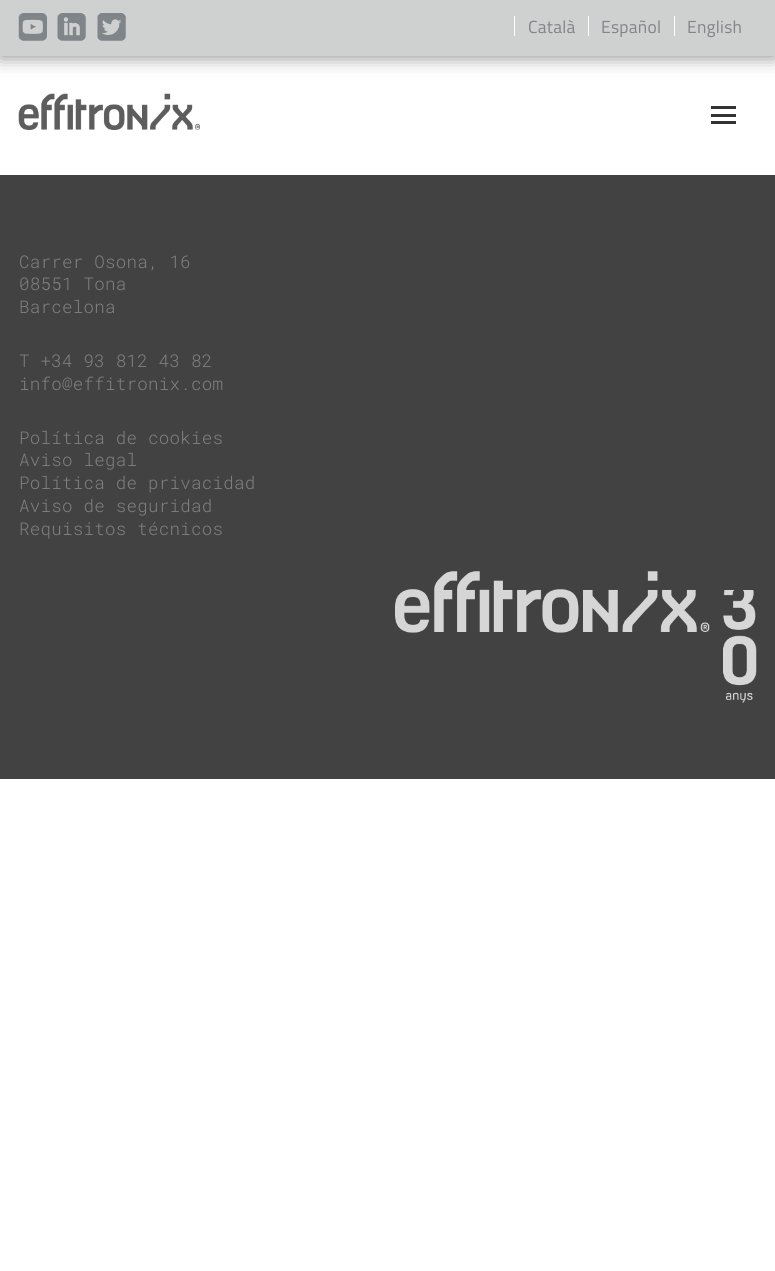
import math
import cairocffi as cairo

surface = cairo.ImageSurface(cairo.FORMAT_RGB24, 775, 1271)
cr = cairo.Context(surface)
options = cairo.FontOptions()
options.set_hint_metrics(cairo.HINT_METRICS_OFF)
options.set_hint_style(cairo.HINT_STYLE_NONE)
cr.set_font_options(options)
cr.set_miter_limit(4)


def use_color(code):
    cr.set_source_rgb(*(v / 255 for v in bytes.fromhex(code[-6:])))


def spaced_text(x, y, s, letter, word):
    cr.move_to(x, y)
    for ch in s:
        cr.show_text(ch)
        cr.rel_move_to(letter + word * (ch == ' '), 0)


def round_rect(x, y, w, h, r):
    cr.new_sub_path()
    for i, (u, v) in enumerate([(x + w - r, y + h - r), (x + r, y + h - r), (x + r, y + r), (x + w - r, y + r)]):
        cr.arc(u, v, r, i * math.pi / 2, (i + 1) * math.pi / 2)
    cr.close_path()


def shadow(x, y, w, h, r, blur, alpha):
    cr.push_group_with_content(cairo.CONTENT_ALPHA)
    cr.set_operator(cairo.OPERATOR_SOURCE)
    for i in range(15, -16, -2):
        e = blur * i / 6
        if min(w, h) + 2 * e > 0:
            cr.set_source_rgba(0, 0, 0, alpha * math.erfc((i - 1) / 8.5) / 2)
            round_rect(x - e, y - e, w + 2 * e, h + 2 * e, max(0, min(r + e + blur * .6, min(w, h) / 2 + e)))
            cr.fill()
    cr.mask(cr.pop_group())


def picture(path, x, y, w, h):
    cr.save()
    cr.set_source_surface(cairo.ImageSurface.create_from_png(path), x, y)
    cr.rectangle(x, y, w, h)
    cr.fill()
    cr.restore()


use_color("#ffffff")
cr.paint()
use_color("#000000")
shadow(0, 0, 775, 56, 0, 9.5, 0.5)
use_color("#cfd0d0")
cr.rectangle(0, 0, 775, 56)
cr.fill()
picture("img1.png", 18, 13, 29, 28)
picture("img2.png", 57, 13, 29, 28)
picture("img3.png", 97, 13, 29, 28)
use_color("#ffffff")
cr.rectangle(514, 16, 1, 20)
cr.fill()
cr.select_font_face("Titillium Web")
cr.set_font_size(17.5)
use_color("#80858a")
spaced_text(528, 33, "Català", 0.25, 0)
use_color("#ffffff")
cr.rectangle(588, 16, 1, 20)
cr.fill()
use_color("#80858a")
spaced_text(601, 33, "Español", 0.25, 0)
use_color("#ffffff")
cr.rectangle(674, 16, 1, 20)
cr.fill()
use_color("#80858a")
spaced_text(687, 33, "English", 0.25, 0)
picture("img4.png", 18, 93, 182, 37)
use_color("#333333")
cr.rectangle(711, 106, 25, 3)
cr.fill()
cr.rectangle(711, 114, 25, 3)
cr.fill()
cr.rectangle(711, 121, 25, 3)
cr.fill()
use_color("#424242")
cr.rectangle(0, 175, 775, 604)
cr.fill()
cr.select_font_face("Roboto Mono Light")
use_color("#808080")
spaced_text(19, 268, "Carrer Osona, 16", 0.25, 0)
spaced_text(19, 290, "08551 Tona", 0.25, 0)
spaced_text(19, 313, "Barcelona", 0.25, 0)
spaced_text(19, 367, "T +34 93 812 43 82", 0.25, 0)
spaced_text(19, 390, "info@effitronix.com", 0.25, 0)
spaced_text(19, 444, "Política de cookies", 0.25, 0)
spaced_text(19, 466, "Aviso legal", 0.25, 0)
spaced_text(19, 489, "Política de privacidad", 0.25, 0)
spaced_text(19, 512, "Aviso de seguridad", 0.25, 0)
spaced_text(19, 535, "Requisitos técnicos", 0.25, 0)
picture("img5.png", 395, 571, 362, 132)
surface.write_to_png("result.png")
